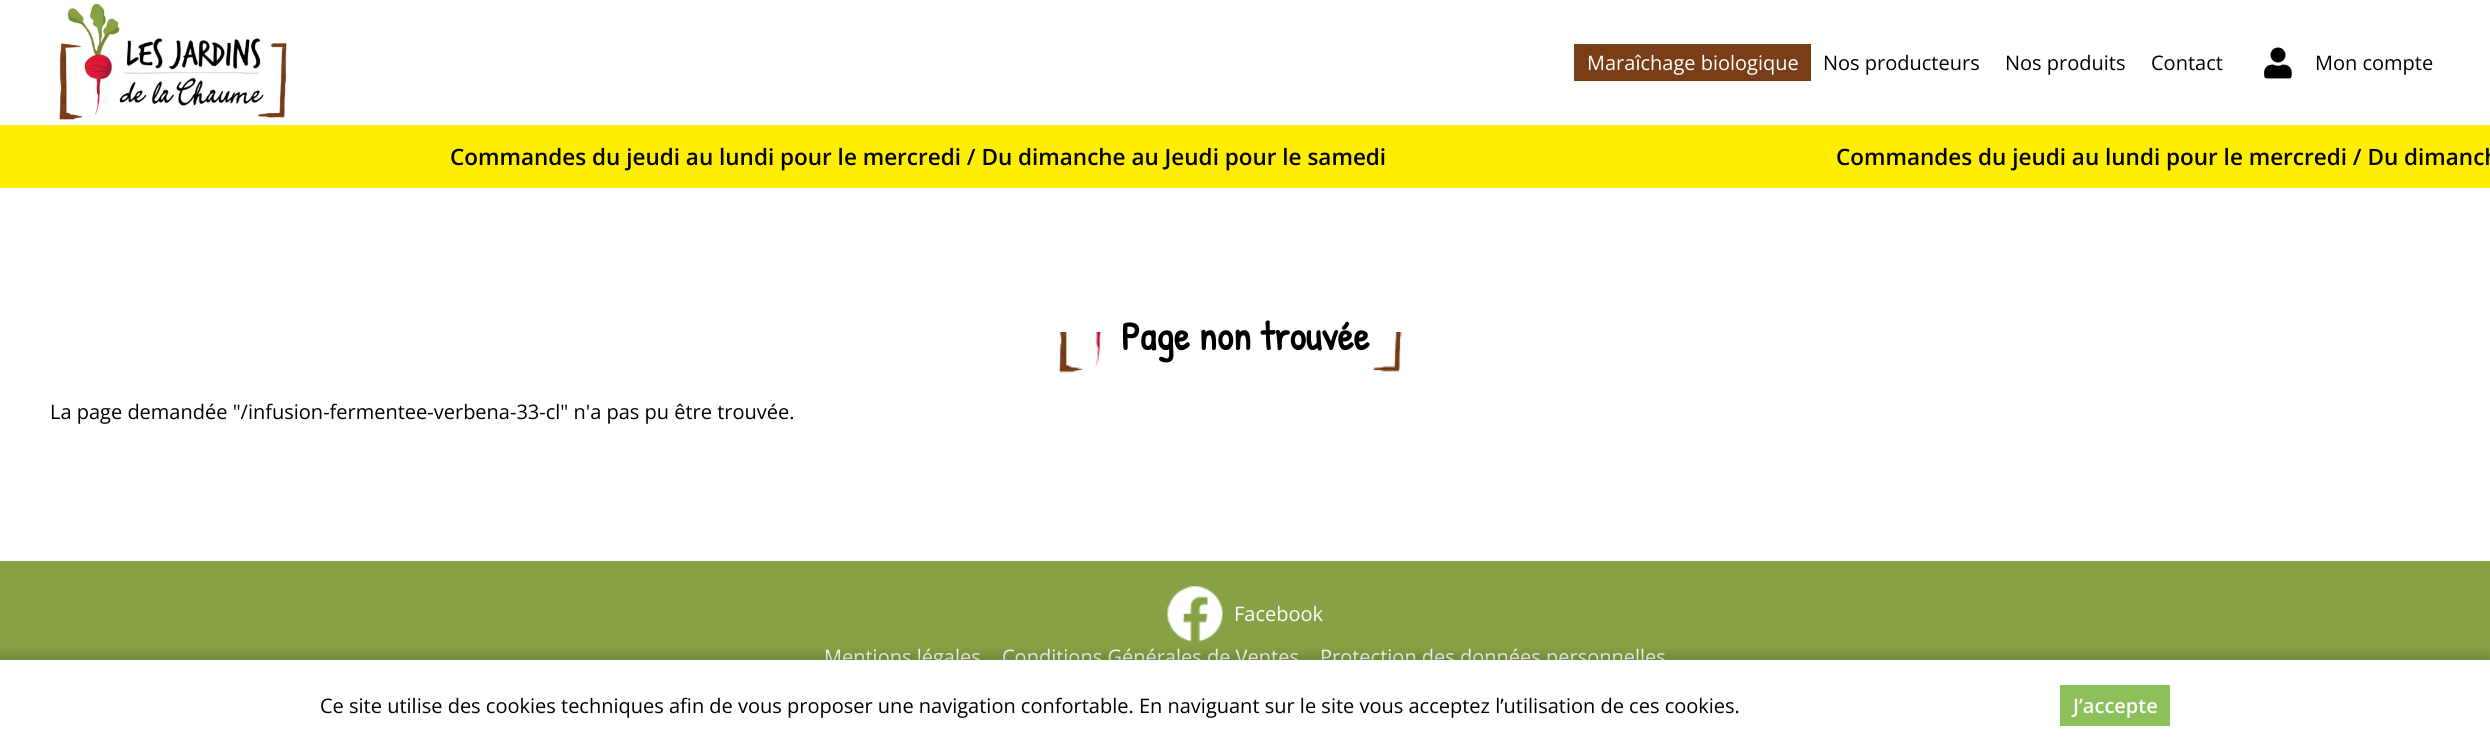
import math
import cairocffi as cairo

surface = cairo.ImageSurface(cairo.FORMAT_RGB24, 2490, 751)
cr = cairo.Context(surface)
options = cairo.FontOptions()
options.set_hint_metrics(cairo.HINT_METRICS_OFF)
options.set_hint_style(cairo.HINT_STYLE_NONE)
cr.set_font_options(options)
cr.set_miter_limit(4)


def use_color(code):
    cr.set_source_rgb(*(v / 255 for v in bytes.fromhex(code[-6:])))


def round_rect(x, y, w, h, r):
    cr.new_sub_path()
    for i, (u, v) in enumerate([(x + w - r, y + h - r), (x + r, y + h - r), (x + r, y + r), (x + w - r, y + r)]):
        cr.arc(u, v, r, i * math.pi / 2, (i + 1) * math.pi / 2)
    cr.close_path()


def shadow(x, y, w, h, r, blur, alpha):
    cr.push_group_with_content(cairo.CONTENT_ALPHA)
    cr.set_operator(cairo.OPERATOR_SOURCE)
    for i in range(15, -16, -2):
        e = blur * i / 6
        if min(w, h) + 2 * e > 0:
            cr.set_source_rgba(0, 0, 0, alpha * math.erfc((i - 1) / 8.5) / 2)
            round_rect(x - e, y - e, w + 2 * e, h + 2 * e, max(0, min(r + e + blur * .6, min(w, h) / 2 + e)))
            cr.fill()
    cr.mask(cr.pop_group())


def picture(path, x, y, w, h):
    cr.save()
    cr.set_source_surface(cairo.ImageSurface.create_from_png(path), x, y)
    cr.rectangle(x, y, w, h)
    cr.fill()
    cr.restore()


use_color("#ffffff")
cr.paint()
picture("img1.png", 59, 0, 229, 120)
use_color("#783e18")
cr.rectangle(1574, 44, 237, 37)
cr.fill()
cr.select_font_face("Open Sans")
cr.set_font_size(20)
use_color("#ffffff")
cr.move_to(1587, 70)
cr.show_text("Maraîchage biologique")
use_color("#000000")
cr.move_to(1823, 70)
cr.show_text("Nos producteurs")
cr.move_to(2005, 70)
cr.show_text("Nos produits")
cr.move_to(2151, 70)
cr.show_text("Contact")
picture("img2.png", 2264, 47, 28, 32)
cr.move_to(2315, 70)
cr.show_text("Mon compte")
use_color("#ffee00")
cr.rectangle(0, 125, 2490, 63)
cr.fill()
cr.select_font_face("Open Sans SemiBold")
cr.set_font_size(22.5)
use_color("#000000")
cr.move_to(450, 165)
cr.show_text("Commandes du jeudi au lundi pour le mercredi / Du dimanche au Jeudi pour le samedi")
cr.move_to(1836, 165)
cr.show_text("Commandes du jeudi au lundi pour le mercredi / Du dimanch")
picture("img3.png", 1058, 332, 44, 41)
cr.select_font_face("Patrick Hand", cairo.FONT_SLANT_NORMAL, cairo.FONT_WEIGHT_BOLD)
cr.set_font_size(40)
cr.move_to(1121, 350)
cr.show_text("Page non trouvée")
picture("img4.png", 1372, 332, 30, 40)
cr.select_font_face("Open Sans")
cr.set_font_size(20)
cr.move_to(50, 419)
cr.show_text("La page demandée \"/infusion-fermentee-verbena-33-cl\" n'a pas pu être trouvée.")
use_color("#87a245")
cr.rectangle(0, 561, 2490, 99)
cr.fill()
picture("img5.png", 1167, 586, 56, 56)
use_color("#ffffff")
cr.move_to(1234, 621)
cr.show_text("Facebook")
cr.move_to(824, 664)
cr.show_text("Mentions légales")
cr.move_to(1002, 664)
cr.show_text("Conditions Générales de Ventes")
cr.move_to(1320, 664)
cr.show_text("Protection des données personnelles")
use_color("#000000")
shadow(0, 655, 2490, 91, 0, 5, 0.2)
use_color("#ffffff")
cr.rectangle(0, 660, 2490, 91)
cr.fill()
use_color("#000000")
cr.move_to(320, 713)
cr.show_text("Ce site utilise des cookies techniques afin de vous proposer une navigation confortable. En naviguant sur le site vous acceptez l’utilisation de ces cookies.")
use_color("#8cc05a")
cr.rectangle(2060, 685, 110, 41)
cr.fill()
cr.select_font_face("Open Sans SemiBold")
use_color("#ffffff")
cr.move_to(2073, 713)
cr.show_text("J’accepte")
surface.write_to_png("result.png")
